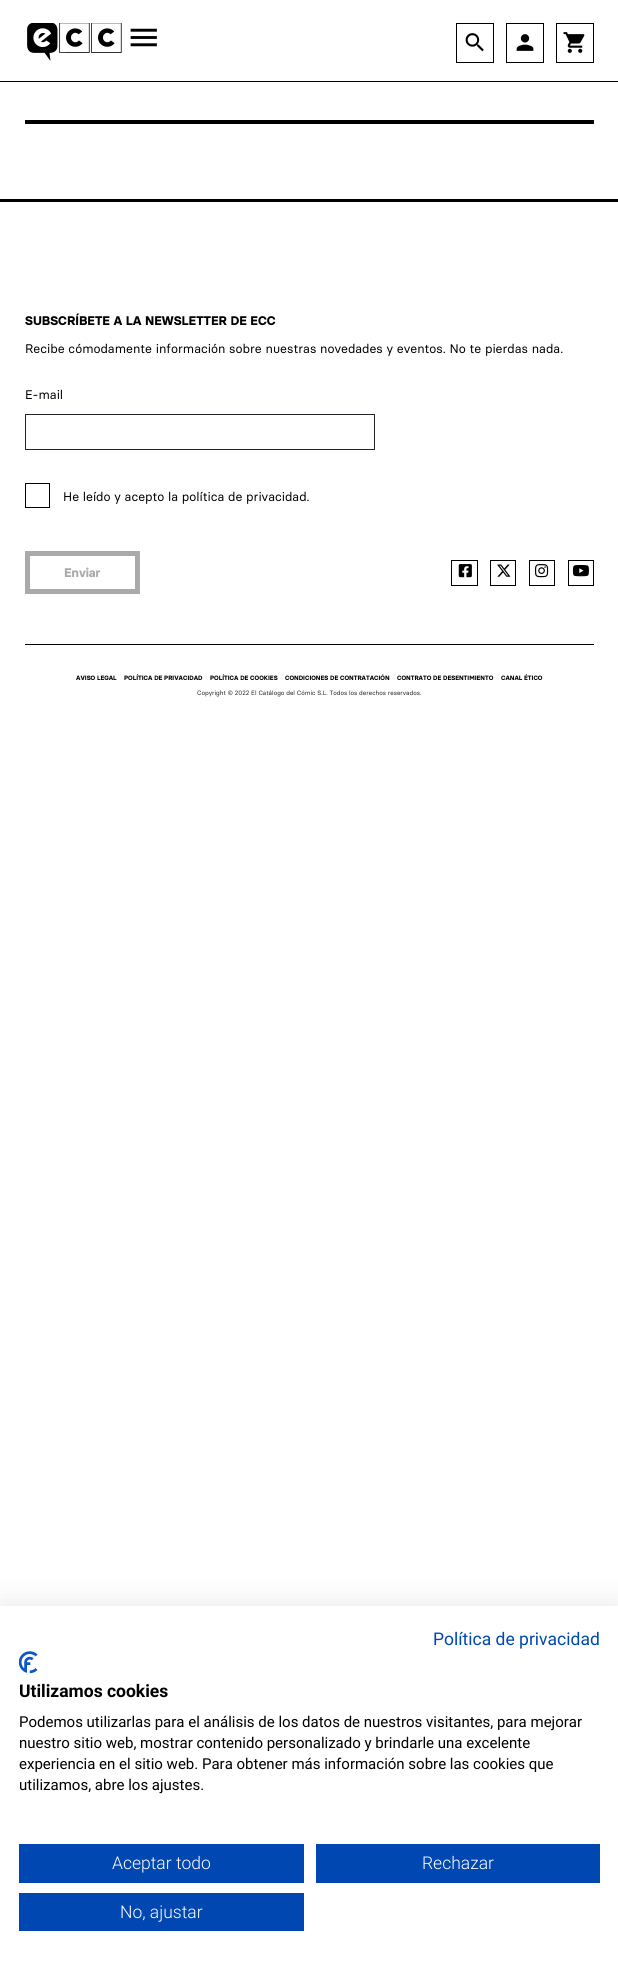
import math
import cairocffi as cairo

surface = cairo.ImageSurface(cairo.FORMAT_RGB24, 618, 1964)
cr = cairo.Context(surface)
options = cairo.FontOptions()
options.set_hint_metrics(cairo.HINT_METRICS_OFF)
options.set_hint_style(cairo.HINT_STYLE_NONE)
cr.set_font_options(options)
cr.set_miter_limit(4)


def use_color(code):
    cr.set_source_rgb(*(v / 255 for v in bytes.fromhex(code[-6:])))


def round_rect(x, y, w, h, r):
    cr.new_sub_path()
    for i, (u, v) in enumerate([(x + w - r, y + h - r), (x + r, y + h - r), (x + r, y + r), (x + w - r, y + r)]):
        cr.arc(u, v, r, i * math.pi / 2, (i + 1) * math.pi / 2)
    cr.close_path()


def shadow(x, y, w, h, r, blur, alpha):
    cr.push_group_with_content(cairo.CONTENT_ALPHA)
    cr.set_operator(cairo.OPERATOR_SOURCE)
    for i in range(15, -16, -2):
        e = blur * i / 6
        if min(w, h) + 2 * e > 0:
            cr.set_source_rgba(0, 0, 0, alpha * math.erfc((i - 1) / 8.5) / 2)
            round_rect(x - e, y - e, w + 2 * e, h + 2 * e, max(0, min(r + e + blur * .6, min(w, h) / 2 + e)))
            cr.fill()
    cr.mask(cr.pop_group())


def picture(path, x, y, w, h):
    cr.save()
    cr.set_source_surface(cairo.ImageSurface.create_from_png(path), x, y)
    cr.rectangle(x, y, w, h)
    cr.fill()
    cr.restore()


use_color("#ffffff")
cr.paint()
picture("img1.png", 27, 23, 95, 38)
cr.rectangle(456.5, 23.5, 37, 39)
use_color("#000000")
cr.set_line_width(1)
cr.stroke()
picture("img2.png", 465, 33, 19, 19)
cr.rectangle(506.5, 23.5, 37, 39)
cr.stroke()
picture("img3.png", 516, 34, 18, 17)
cr.rectangle(556.5, 23.5, 37, 39)
cr.stroke()
picture("img4.png", 563, 32, 22, 21)
picture("img5.png", 130, 28, 27, 19)
cr.rectangle(0, 81, 618, 1)
cr.fill()
cr.rectangle(25, 120, 569, 4)
cr.fill()
cr.rectangle(0, 199, 618, 3)
cr.fill()
cr.select_font_face("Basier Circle", cairo.FONT_SLANT_NORMAL, cairo.FONT_WEIGHT_BOLD)
cr.set_font_size(12.5)
cr.move_to(25, 325)
cr.show_text("SUBSCRÍBETE A LA NEWSLETTER DE ECC")
cr.select_font_face("Basier Circle")
cr.move_to(25, 353)
cr.show_text("Recibe cómodamente información sobre nuestras novedades y eventos. No te pierdas nada.")
cr.move_to(25, 399)
cr.show_text("E-mail")
cr.rectangle(25.5, 414.5, 349, 35)
use_color("#212529")
cr.stroke()
cr.rectangle(25.5, 483.5, 24, 24)
use_color("#000000")
cr.stroke()
cr.move_to(63, 501)
cr.show_text("He leído y acepto la política de privacidad.")
cr.rectangle(27.5, 553.5, 110, 38)
use_color("#aaaaaa")
cr.set_line_width(5)
cr.stroke()
cr.select_font_face("Basier Circle", cairo.FONT_SLANT_NORMAL, cairo.FONT_WEIGHT_BOLD)
cr.move_to(64, 577)
cr.show_text("Enviar")
cr.rectangle(451.5, 560.5, 26, 25)
use_color("#000000")
cr.set_line_width(1)
cr.stroke()
picture("img6.png", 458, 564, 14, 14)
cr.rectangle(490.5, 560.5, 25, 25)
cr.stroke()
picture("img7.png", 497, 564, 14, 13)
cr.rectangle(529.5, 560.5, 25, 25)
cr.stroke()
picture("img8.png", 535, 564, 14, 14)
cr.rectangle(568.5, 560.5, 25, 25)
cr.stroke()
picture("img9.png", 572, 565, 17, 12)
cr.rectangle(25, 644, 569, 1)
cr.fill()
cr.set_font_size(6.25)
cr.move_to(76, 680)
cr.show_text("AVISO LEGAL")
cr.move_to(124, 680)
cr.show_text("POLÍTICA DE PRIVACIDAD")
cr.move_to(210, 680)
cr.show_text("POLÍTICA DE COOKIES")
cr.move_to(285, 680)
cr.show_text("CONDICIONES DE CONTRATACIÓN")
cr.move_to(397, 680)
cr.show_text("CONTRATO DE DESENTIMIENTO")
cr.move_to(501, 680)
cr.show_text("CANAL ÉTICO")
cr.select_font_face("Basier Circle")
use_color("#212529")
cr.move_to(197, 695)
cr.show_text("Copyright © 2022 El Catálogo del Cómic S.L. Todos los derechos reservados.")
use_color("#000000")
shadow(0, 1606, 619, 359, 0, 15, 0.1)
use_color("#ffffff")
cr.rectangle(0, 1606, 618, 358)
cr.fill()
cr.select_font_face("Roboto")
cr.set_font_size(17.5)
use_color("#0047b2")
cr.move_to(433, 1645)
cr.show_text("Política de privacidad")
picture("img10.png", 19, 1651, 19, 23)
cr.select_font_face("Roboto", cairo.FONT_SLANT_NORMAL, cairo.FONT_WEIGHT_BOLD)
use_color("#000000")
cr.move_to(19, 1697)
cr.show_text("Utilizamos cookies")
cr.select_font_face("Roboto")
cr.set_font_size(15)
cr.move_to(19, 1727)
cr.show_text("Podemos utilizarlas para el análisis de los datos de nuestros visitantes, para mejorar")
cr.move_to(19, 1748)
cr.show_text("nuestro sitio web, mostrar contenido personalizado y brindarle una excelente")
cr.move_to(19, 1769)
cr.show_text("experiencia en el sitio web. Para obtener más información sobre las cookies que")
cr.move_to(19, 1790)
cr.show_text("utilizamos, abre los ajustes.")
use_color("#0047b2")
cr.rectangle(19, 1844, 285, 39)
cr.fill()
cr.select_font_face("Roboto Light")
cr.set_font_size(17.5)
use_color("#ffffff")
cr.move_to(112, 1869)
cr.show_text("Aceptar todo")
use_color("#0047b2")
cr.rectangle(316, 1844, 284, 39)
cr.fill()
use_color("#ffffff")
cr.move_to(422, 1869)
cr.show_text("Rechazar")
use_color("#0047b2")
cr.rectangle(19, 1893, 285, 38)
cr.fill()
use_color("#ffffff")
cr.move_to(120, 1918)
cr.show_text("No, ajustar")
surface.write_to_png("result.png")
